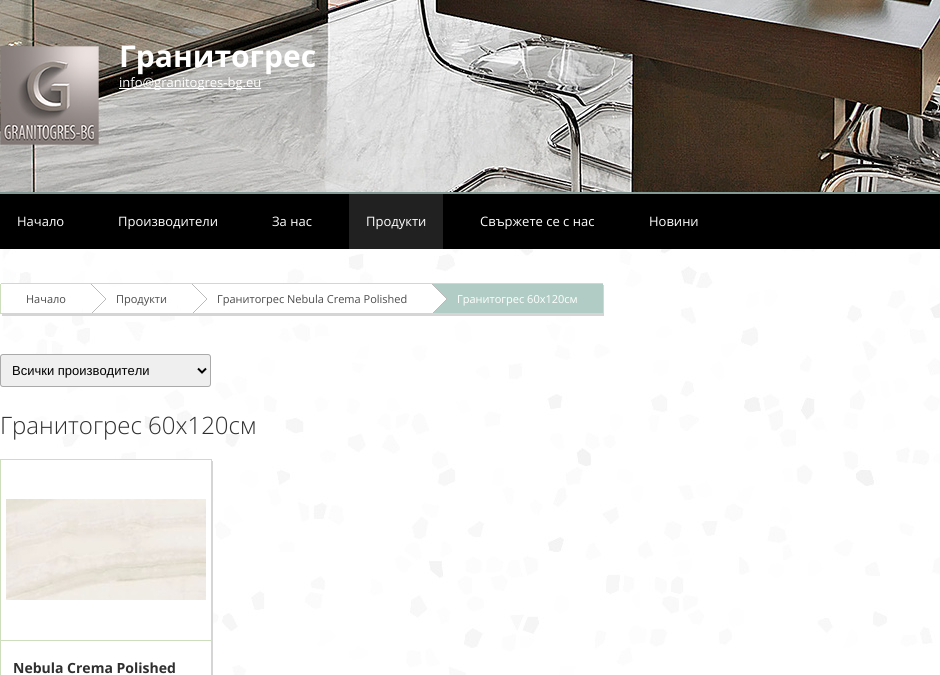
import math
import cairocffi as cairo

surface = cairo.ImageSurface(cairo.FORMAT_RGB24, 940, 675)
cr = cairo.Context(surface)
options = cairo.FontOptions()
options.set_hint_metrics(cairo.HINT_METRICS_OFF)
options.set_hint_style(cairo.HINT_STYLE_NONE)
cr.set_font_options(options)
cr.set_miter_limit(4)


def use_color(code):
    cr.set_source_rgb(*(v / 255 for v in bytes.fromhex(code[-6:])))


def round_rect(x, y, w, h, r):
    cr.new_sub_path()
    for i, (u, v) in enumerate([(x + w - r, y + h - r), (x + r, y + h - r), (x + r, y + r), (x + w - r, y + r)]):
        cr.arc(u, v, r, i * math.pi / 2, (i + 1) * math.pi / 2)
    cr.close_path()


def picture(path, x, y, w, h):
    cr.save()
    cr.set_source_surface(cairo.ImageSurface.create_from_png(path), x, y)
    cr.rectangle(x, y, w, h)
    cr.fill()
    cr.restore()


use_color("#ffffff")
cr.paint()
picture("img1.png", 2, 249, 938, 426)
picture("img2.png", 0, 0, 940, 192)
picture("img3.png", 0, 46, 99, 99)
cr.select_font_face("Open Sans", cairo.FONT_SLANT_NORMAL, cairo.FONT_WEIGHT_BOLD)
cr.set_font_size(30)
use_color("#ffffff")
cr.move_to(119, 67)
cr.show_text("Гранитогрес")
cr.rectangle(119, 88, 142, 1)
cr.fill()
cr.select_font_face("Open Sans")
cr.set_font_size(13)
cr.move_to(119, 87)
cr.show_text("info@granitogres-bg.eu")
use_color("#000000")
cr.rectangle(0, 194, 940, 55)
cr.fill()
use_color("#849b95")
cr.rectangle(0, 192, 940, 2)
cr.fill()
use_color("#ffffff")
cr.move_to(17, 226)
cr.show_text("Начало")
cr.move_to(118, 226)
cr.show_text("Производители")
cr.move_to(272, 226)
cr.show_text("За нас")
use_color("#212121")
cr.rectangle(349, 194, 94, 55)
cr.fill()
use_color("#ffffff")
cr.move_to(366, 226)
cr.show_text("Продукти")
cr.move_to(480, 226)
cr.show_text("Свържете се с нас")
cr.move_to(649, 226)
cr.show_text("Новини")
use_color("#cddebc")
cr.rectangle(0, 284, 1, 30)
cr.fill()
use_color("#d5d5d5")
cr.new_path()
cr.move_to(2, 314)
cr.line_to(2, 316)
cr.line_to(92, 316)
cr.line_to(92, 285)
cr.line_to(91, 285)
cr.line_to(91, 314)
cr.close_path()
cr.fill()
use_color("#ffffff")
cr.rectangle(4, 284, 78, 29)
cr.fill()
cr.set_font_size(11)
use_color("#4c4c4c")
cr.move_to(26, 303)
cr.show_text("Начало")
use_color("#cddebc")
cr.rectangle(1, 283, 602, 1)
cr.fill()
cr.rectangle(1, 313, 90, 1)
cr.fill()
use_color("#d5d5d5")
cr.new_path()
cr.move_to(92, 314)
cr.line_to(92, 316)
cr.line_to(193, 316)
cr.line_to(193, 285)
cr.line_to(192, 285)
cr.line_to(192, 314)
cr.close_path()
cr.fill()
picture("img4.png", 91, 284, 15, 29)
use_color("#ffffff")
cr.rectangle(160, 303, 17, 10)
cr.fill()
use_color("#4c4c4c")
cr.move_to(116, 303)
cr.show_text("Продукти")
use_color("#cddebc")
cr.rectangle(91, 313, 101, 1)
cr.fill()
use_color("#d5d5d5")
cr.new_path()
cr.move_to(193, 314)
cr.line_to(193, 316)
cr.line_to(433, 316)
cr.line_to(433, 285)
cr.line_to(432, 285)
cr.line_to(432, 314)
cr.close_path()
cr.fill()
use_color("#ffffff")
cr.rectangle(199, 284, 233, 29)
cr.fill()
picture("img4.png", 192, 284, 15, 29)
use_color("#4c4c4c")
cr.move_to(217, 303)
cr.show_text("Гранитогрес Nebula Crema Polished")
use_color("#cddebc")
cr.rectangle(192, 313, 240, 1)
cr.fill()
use_color("#d5d5d5")
cr.new_path()
cr.move_to(433, 314)
cr.line_to(433, 316)
cr.line_to(604, 316)
cr.line_to(604, 285)
cr.line_to(603, 285)
cr.line_to(603, 314)
cr.close_path()
cr.fill()
use_color("#b1ccc4")
cr.rectangle(433, 284, 170, 29)
cr.fill()
picture("img5.png", 432, 284, 15, 29)
use_color("#ffffff")
cr.move_to(457, 303)
cr.show_text("Гранитогрес 60x120см")
use_color("#cddebc")
cr.rectangle(432, 313, 171, 1)
cr.fill()
use_color("#efefef")
round_rect(0.5, 354.5, 210, 32, 2.5)
cr.fill_preserve()
use_color("#aaaaaa")
cr.set_line_width(1)
cr.stroke()
cr.new_path()
cr.move_to(198, 368.5)
cr.line_to(202, 372.5)
cr.line_to(206, 368.5)
use_color("#000000")
cr.set_line_width(2)
cr.stroke()
cr.select_font_face("Liberation Sans")
cr.set_font_size(13)
cr.move_to(12, 375)
cr.show_text("Всички производители")
cr.select_font_face("Open Sans Light")
cr.set_font_size(24)
use_color("#2f2f2f")
cr.move_to(0, 434)
cr.show_text("Гранитогрес 60x120см")
use_color("#d5d5d5")
cr.new_path()
cr.move_to(1, 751)
cr.line_to(1, 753)
cr.line_to(213, 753)
cr.line_to(213, 461)
cr.line_to(212, 461)
cr.line_to(212, 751)
cr.close_path()
cr.fill()
use_color("#ffffff")
cr.rectangle(2, 460, 209, 215)
cr.fill()
cr.rectangle(0.5, 459.5, 211, 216)
use_color("#cddebc")
cr.set_line_width(1)
cr.stroke()
picture("img6.png", 6, 499, 200, 101)
cr.rectangle(1, 640, 210, 1)
cr.fill()
cr.select_font_face("Open Sans", cairo.FONT_SLANT_NORMAL, cairo.FONT_WEIGHT_BOLD)
cr.set_font_size(14)
use_color("#2f2f2f")
cr.move_to(13, 673)
cr.show_text("Nebula Crema Polished")
surface.write_to_png("result.png")
